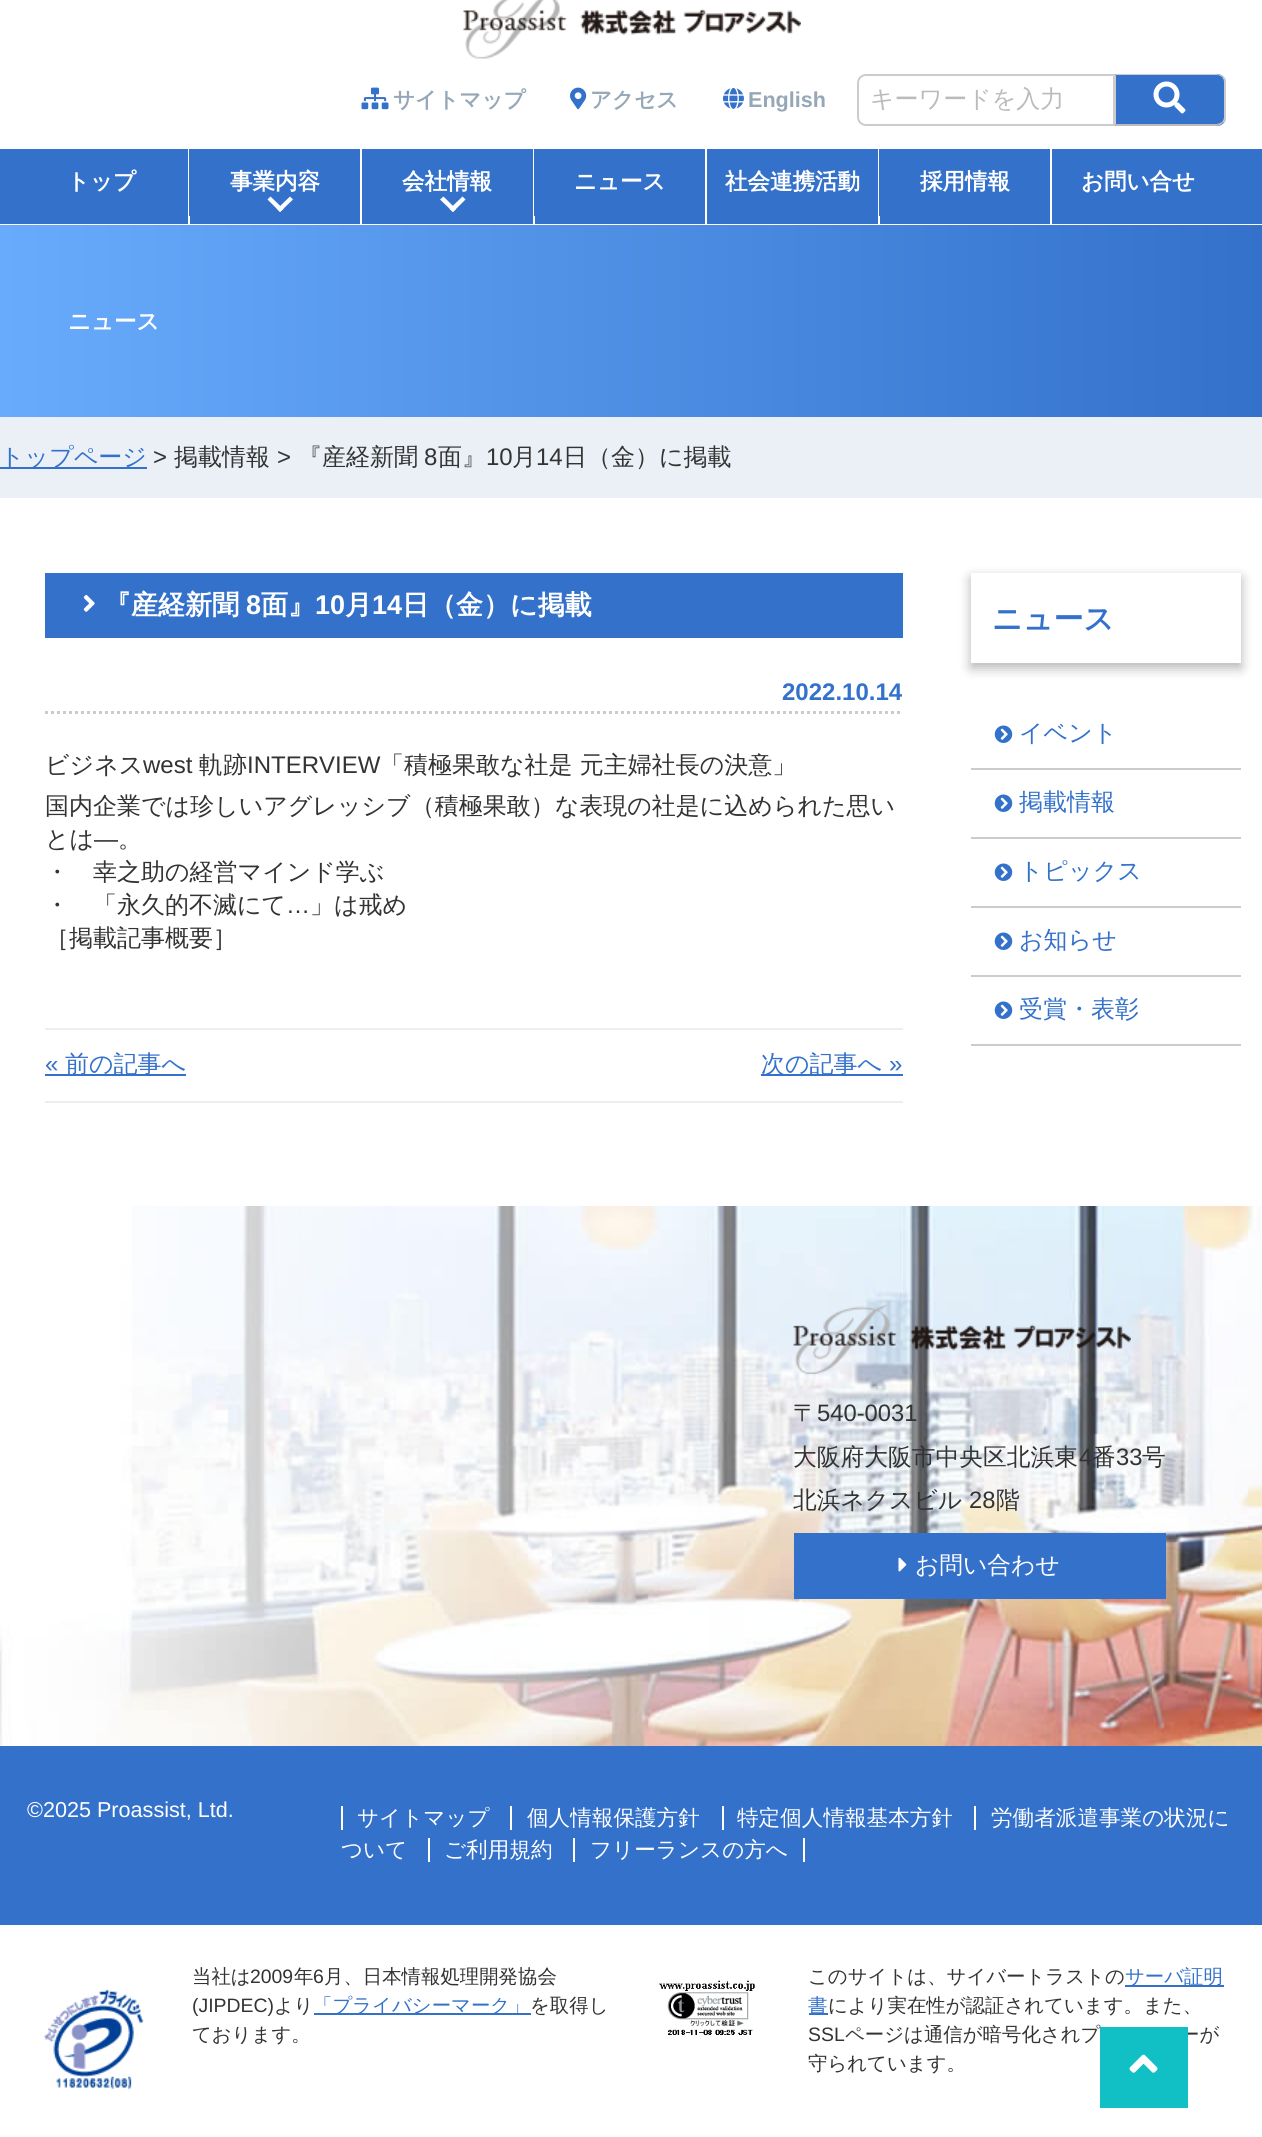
import math
import cairocffi as cairo

surface = cairo.ImageSurface(cairo.FORMAT_RGB24, 1262, 2137)
cr = cairo.Context(surface)
options = cairo.FontOptions()
options.set_hint_metrics(cairo.HINT_METRICS_OFF)
options.set_hint_style(cairo.HINT_STYLE_NONE)
cr.set_font_options(options)
cr.set_miter_limit(4)


def use_color(code):
    cr.set_source_rgb(*(v / 255 for v in bytes.fromhex(code[-6:])))


def round_rect(x, y, w, h, r):
    cr.new_sub_path()
    for i, (u, v) in enumerate([(x + w - r, y + h - r), (x + r, y + h - r), (x + r, y + r), (x + w - r, y + r)]):
        cr.arc(u, v, r, i * math.pi / 2, (i + 1) * math.pi / 2)
    cr.close_path()


def shadow(x, y, w, h, r, blur, alpha):
    cr.push_group_with_content(cairo.CONTENT_ALPHA)
    cr.set_operator(cairo.OPERATOR_SOURCE)
    for i in range(15, -16, -2):
        e = blur * i / 6
        if min(w, h) + 2 * e > 0:
            cr.set_source_rgba(0, 0, 0, alpha * math.erfc((i - 1) / 8.5) / 2)
            round_rect(x - e, y - e, w + 2 * e, h + 2 * e, max(0, min(r + e + blur * .6, min(w, h) / 2 + e)))
            cr.fill()
    cr.mask(cr.pop_group())


def picture(path, x, y, w, h):
    cr.save()
    cr.set_source_surface(cairo.ImageSurface.create_from_png(path), x, y)
    cr.rectangle(x, y, w, h)
    cr.fill()
    cr.restore()


use_color("#ffffff")
cr.paint()
picture("img1.png", 463, 0, 338, 59)
picture("img2.png", 361, 87, 28, 23)
cr.select_font_face("WenQuanYi Zen Hei", cairo.FONT_SLANT_NORMAL, cairo.FONT_WEIGHT_BOLD)
cr.set_font_size(21.6)
use_color("#96a7b7")
cr.move_to(393, 107)
cr.show_text("サイトマップ")
picture("img3.png", 570, 87, 17, 23)
cr.move_to(590, 107)
cr.show_text("アクセス")
picture("img4.png", 723, 87, 21, 22)
cr.select_font_face("Liberation Sans", cairo.FONT_SLANT_NORMAL, cairo.FONT_WEIGHT_BOLD)
cr.move_to(748, 107)
cr.show_text("English")
cr.new_path()
cr.move_to(866, 75)
cr.line_to(1114, 75)
cr.line_to(1114, 125)
cr.line_to(866, 125)
cr.curve_to(861.5, 125, 858, 121.5, 858, 117)
cr.line_to(858, 83)
cr.curve_to(858, 78.5, 861.5, 75, 866, 75)
cr.close_path()
use_color("#cccccc")
cr.stroke()
cr.select_font_face("WenQuanYi Zen Hei Medium")
cr.set_font_size(24)
use_color("#bbbbbb")
cr.move_to(870, 107)
cr.show_text("キーワードを入力")
use_color("#3371cb")
cr.new_path()
cr.move_to(1115, 74)
cr.line_to(1217, 74)
cr.curve_to(1222, 74, 1226, 78, 1226, 83)
cr.line_to(1226, 117)
cr.curve_to(1226, 122, 1222, 126, 1217, 126)
cr.line_to(1115, 126)
cr.close_path()
cr.fill()
use_color("#cccccc")
cr.new_path()
cr.move_to(1116, 75)
cr.line_to(1216, 75)
cr.curve_to(1219, 75, 1221, 76, 1222, 77)
cr.line_to(1223, 76)
cr.curve_to(1221, 75, 1218, 74, 1216, 74)
cr.line_to(1115, 74)
cr.close_path()
cr.fill()
cr.new_path()
cr.move_to(1223, 76)
cr.line_to(1226, 80)
cr.line_to(1226, 120)
cr.line_to(1223, 123)
cr.line_to(1222, 122)
cr.curve_to(1223, 121, 1224, 119, 1224, 117)
cr.line_to(1224, 82)
cr.curve_to(1224, 80, 1223, 78, 1222, 77)
cr.close_path()
cr.fill()
use_color("#bbbbbb")
cr.new_path()
cr.move_to(1114, 126)
cr.line_to(1216, 126)
cr.curve_to(1218, 126, 1221, 125, 1223, 123)
cr.line_to(1222, 122)
cr.curve_to(1220, 123, 1218, 124, 1216, 124)
cr.line_to(1116, 124)
cr.close_path()
cr.fill()
use_color("#cccccc")
cr.new_path()
cr.move_to(1116, 75)
cr.line_to(1114, 74)
cr.line_to(1114, 126)
cr.line_to(1116, 124)
cr.close_path()
cr.fill()
picture("img5.png", 1153, 81, 33, 33)
use_color("#3371cb")
cr.rectangle(0, 149, 1262, 75)
cr.fill()
cr.select_font_face("WenQuanYi Zen Hei", cairo.FONT_SLANT_NORMAL, cairo.FONT_WEIGHT_BOLD)
cr.set_font_size(22.5)
use_color("#ffffff")
cr.move_to(67, 189)
cr.show_text("トップ")
cr.rectangle(188, 149, 2, 75)
cr.fill()
use_color("#3371cb")
cr.rectangle(189, 149, 1, 67)
cr.fill()
use_color("#ffffff")
cr.move_to(230, 189)
cr.show_text("事業内容")
cr.new_path()
cr.move_to(290, 196.5)
cr.line_to(293, 199.5)
cr.line_to(280, 212)
cr.line_to(277, 209)
cr.close_path()
cr.fill()
cr.new_path()
cr.move_to(270.5, 196.5)
cr.line_to(283.5, 209)
cr.line_to(280, 212)
cr.line_to(267.5, 199.5)
cr.close_path()
cr.fill()
cr.rectangle(360, 149, 2, 75)
cr.fill()
cr.move_to(402, 189)
cr.show_text("会社情報")
cr.new_path()
cr.move_to(462.5, 196.5)
cr.line_to(465.5, 199.5)
cr.line_to(453, 212)
cr.line_to(449.5, 209)
cr.close_path()
cr.fill()
cr.new_path()
cr.move_to(443.5, 196.5)
cr.line_to(456, 209)
cr.line_to(453, 212)
cr.line_to(440, 199.5)
cr.close_path()
cr.fill()
cr.rectangle(533, 149, 2, 75)
cr.fill()
use_color("#3371cb")
cr.rectangle(534, 149, 1, 67)
cr.fill()
use_color("#ffffff")
cr.move_to(574, 189)
cr.show_text("ニュース")
cr.rectangle(705, 149, 2, 75)
cr.fill()
cr.move_to(725, 189)
cr.show_text("社会連携活動")
cr.rectangle(878, 149, 2, 75)
cr.fill()
use_color("#3371cb")
cr.rectangle(879, 149, 1, 67)
cr.fill()
use_color("#ffffff")
cr.move_to(920, 189)
cr.show_text("採用情報")
cr.rectangle(1050, 149, 2, 75)
cr.fill()
cr.move_to(1081, 189)
cr.show_text("お問い合せ")
gradient = cairo.LinearGradient(0, 321, 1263, 321)
gradient.add_color_stop_rgba(0, 0.408, 0.671, 0.988, 1)
gradient.add_color_stop_rgba(1, 0.2, 0.443, 0.796, 1)
cr.set_source(gradient)
cr.rectangle(0, 225, 1262, 192)
cr.fill()
use_color("#ffffff")
cr.move_to(68, 329)
cr.show_text("ニュース")
use_color("#eaf0f6")
cr.rectangle(0, 417, 1262, 81)
cr.fill()
use_color("#3371cb")
cr.rectangle(0, 467, 147, 2)
cr.fill()
cr.select_font_face("WenQuanYi Zen Hei Medium")
cr.set_font_size(24)
cr.move_to(0, 465)
cr.show_text("トップページ")
cr.select_font_face("Liberation Sans")
use_color("#333333")
cr.move_to(153, 465)
cr.show_text(">")
cr.select_font_face("WenQuanYi Zen Hei Medium")
cr.move_to(174, 465)
cr.show_text("掲載情報")
cr.select_font_face("Liberation Sans")
cr.move_to(277, 465)
cr.show_text(">")
cr.select_font_face("WenQuanYi Zen Hei Medium")
cr.move_to(298, 465)
cr.show_text("『産経新聞")
cr.select_font_face("Liberation Sans")
cr.move_to(424, 465)
cr.show_text("8")
cr.select_font_face("WenQuanYi Zen Hei Medium")
cr.move_to(438, 465)
cr.show_text("面』")
cr.select_font_face("Liberation Sans")
cr.move_to(486, 465)
cr.show_text("10")
cr.select_font_face("WenQuanYi Zen Hei Medium")
cr.move_to(512, 465)
cr.show_text("月")
cr.select_font_face("Liberation Sans")
cr.move_to(536, 465)
cr.show_text("14")
cr.select_font_face("WenQuanYi Zen Hei Medium")
cr.move_to(563, 465)
cr.show_text("日（金）に掲載")
use_color("#3371cb")
cr.rectangle(45, 573, 858, 65)
cr.fill()
picture("img6.png", 83, 595, 12, 17)
cr.select_font_face("WenQuanYi Zen Hei", cairo.FONT_SLANT_NORMAL, cairo.FONT_WEIGHT_BOLD)
cr.set_font_size(27)
use_color("#ffffff")
cr.move_to(104, 614)
cr.show_text("『産経新聞")
cr.select_font_face("Liberation Sans", cairo.FONT_SLANT_NORMAL, cairo.FONT_WEIGHT_BOLD)
cr.move_to(246, 614)
cr.show_text("8")
cr.select_font_face("WenQuanYi Zen Hei", cairo.FONT_SLANT_NORMAL, cairo.FONT_WEIGHT_BOLD)
cr.move_to(261, 614)
cr.show_text("面』")
cr.select_font_face("Liberation Sans", cairo.FONT_SLANT_NORMAL, cairo.FONT_WEIGHT_BOLD)
cr.move_to(315, 614)
cr.show_text("10")
cr.select_font_face("WenQuanYi Zen Hei", cairo.FONT_SLANT_NORMAL, cairo.FONT_WEIGHT_BOLD)
cr.move_to(345, 614)
cr.show_text("月")
cr.select_font_face("Liberation Sans", cairo.FONT_SLANT_NORMAL, cairo.FONT_WEIGHT_BOLD)
cr.move_to(372, 614)
cr.show_text("14")
cr.select_font_face("WenQuanYi Zen Hei", cairo.FONT_SLANT_NORMAL, cairo.FONT_WEIGHT_BOLD)
cr.move_to(402, 614)
cr.show_text("日（金）に掲載")
cr.new_path()
cr.move_to(45, 712.5)
cr.line_to(903, 712.5)
use_color("#cccccc")
cr.set_line_width(3)
cr.set_dash([3, 3])
cr.stroke()
cr.select_font_face("Liberation Sans", cairo.FONT_SLANT_NORMAL, cairo.FONT_WEIGHT_BOLD)
cr.set_font_size(24)
use_color("#3371cb")
cr.move_to(782, 700)
cr.show_text("2022.10.14")
cr.select_font_face("WenQuanYi Zen Hei Medium")
use_color("#333333")
cr.move_to(45, 773)
cr.show_text("ビジネス")
cr.select_font_face("Liberation Sans")
cr.move_to(143, 773)
cr.show_text("west")
cr.select_font_face("WenQuanYi Zen Hei Medium")
cr.move_to(199, 773)
cr.show_text("軌跡")
cr.select_font_face("Liberation Sans")
cr.move_to(247, 773)
cr.show_text("INTERVIEW")
cr.select_font_face("WenQuanYi Zen Hei Medium")
cr.move_to(380, 773)
cr.show_text("「積極果敢な社是 元主婦社長の決意」")
cr.move_to(45, 814)
cr.show_text("国内企業では珍しいアグレッシブ（積極果敢）な表現の社是に込められた思い")
cr.move_to(45, 847)
cr.show_text("とは")
cr.select_font_face("Liberation Sans")
cr.move_to(94, 847)
cr.show_text("―")
cr.select_font_face("WenQuanYi Zen Hei Medium")
cr.move_to(118, 847)
cr.show_text("。")
cr.move_to(45, 880)
cr.show_text("・　幸之助の経営マインド学ぶ")
cr.move_to(45, 913)
cr.show_text("・　「永久的不滅にて")
cr.select_font_face("Liberation Sans")
cr.move_to(286, 913)
cr.show_text("…")
cr.select_font_face("WenQuanYi Zen Hei Medium")
cr.move_to(310, 913)
cr.show_text("」は戒め")
cr.move_to(45, 946)
cr.show_text("［掲載記事概要］")
use_color("#eeeeee")
cr.rectangle(45, 1028, 858, 2)
cr.fill()
cr.rectangle(45, 1101, 858, 2)
cr.fill()
cr.select_font_face("Liberation Sans")
use_color("#3371cb")
cr.move_to(45, 1072)
cr.show_text("«")
cr.rectangle(45, 1074, 141, 2)
cr.fill()
cr.select_font_face("WenQuanYi Zen Hei Medium")
cr.move_to(65, 1072)
cr.show_text("前の記事へ")
cr.rectangle(761, 1074, 142, 2)
cr.fill()
cr.move_to(761, 1072)
cr.show_text("次の記事へ")
cr.select_font_face("Liberation Sans")
cr.move_to(889, 1072)
cr.show_text("»")
cr.save()
cr.set_fill_rule(cairo.FILL_RULE_EVEN_ODD)
cr.new_path()
cr.move_to(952, 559)
cr.line_to(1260, 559)
cr.line_to(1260, 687)
cr.line_to(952, 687)
cr.close_path()
cr.move_to(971, 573)
cr.line_to(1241, 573)
cr.line_to(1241, 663)
cr.line_to(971, 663)
cr.close_path()
cr.clip()
use_color("#000000")
shadow(971, 578, 270, 90, 0, 6, 0.3)
cr.restore()
cr.select_font_face("WenQuanYi Zen Hei", cairo.FONT_SLANT_NORMAL, cairo.FONT_WEIGHT_BOLD)
cr.set_font_size(30)
cr.move_to(992, 629)
cr.show_text("ニュース")
use_color("#cccccc")
cr.rectangle(971, 768, 270, 2)
cr.fill()
picture("img7.png", 994, 725, 19, 18)
cr.select_font_face("WenQuanYi Zen Hei Medium")
cr.set_font_size(24)
use_color("#3371cb")
cr.move_to(1019, 741)
cr.show_text("イベント")
use_color("#cccccc")
cr.rectangle(971, 837, 270, 2)
cr.fill()
picture("img7.png", 994, 794, 19, 18)
use_color("#3371cb")
cr.move_to(1019, 810)
cr.show_text("掲載情報")
use_color("#cccccc")
cr.rectangle(971, 906, 270, 2)
cr.fill()
picture("img7.png", 994, 863, 19, 18)
use_color("#3371cb")
cr.move_to(1019, 879)
cr.show_text("トピックス")
use_color("#cccccc")
cr.rectangle(971, 975, 270, 2)
cr.fill()
picture("img7.png", 994, 932, 19, 18)
use_color("#3371cb")
cr.move_to(1019, 948)
cr.show_text("お知らせ")
use_color("#cccccc")
cr.rectangle(971, 1044, 270, 2)
cr.fill()
picture("img7.png", 994, 1001, 19, 18)
use_color("#3371cb")
cr.move_to(1019, 1017)
cr.show_text("受賞・表彰")
cr.set_font_size(19.4)
use_color("#333333")
cr.move_to(845, 2041)
cr.show_text("ページは通信が暗号化されプ")
cr.move_to(1180, 2041)
cr.show_text("ーが")
use_color("#10c0c5")
cr.rectangle(1100, 2027, 88, 81)
cr.fill()
picture("img8.png", 1129, 2054, 29, 19)
picture("img9.png", 0, 1206, 1262, 540)
picture("img10.png", 793, 1304, 338, 70)
cr.set_font_size(23.75)
use_color("#333333")
cr.move_to(793, 1421)
cr.show_text("〒")
cr.select_font_face("Liberation Sans")
cr.move_to(817, 1421)
cr.show_text("540-0031")
cr.select_font_face("WenQuanYi Zen Hei Medium")
cr.move_to(793, 1465)
cr.show_text("大阪府大阪市中央区北浜東")
cr.select_font_face("Liberation Sans")
cr.move_to(1079, 1465)
cr.show_text("4")
cr.select_font_face("WenQuanYi Zen Hei Medium")
cr.move_to(1092, 1465)
cr.show_text("番")
cr.select_font_face("Liberation Sans")
cr.move_to(1116, 1465)
cr.show_text("33")
cr.select_font_face("WenQuanYi Zen Hei Medium")
cr.move_to(1142, 1465)
cr.show_text("号")
cr.move_to(793, 1508)
cr.show_text("北浜ネクスビル")
cr.select_font_face("Liberation Sans")
cr.move_to(969, 1508)
cr.show_text("28")
cr.select_font_face("WenQuanYi Zen Hei Medium")
cr.move_to(996, 1508)
cr.show_text("階")
use_color("#3371cb")
cr.rectangle(794, 1533, 372, 66)
cr.fill()
picture("img11.png", 898, 1557, 9, 15)
use_color("#ffffff")
cr.move_to(915, 1573)
cr.show_text("お問い合わせ")
use_color("#3371cb")
cr.rectangle(0, 1746, 1262, 179)
cr.fill()
cr.select_font_face("Liberation Sans")
cr.set_font_size(21.6)
use_color("#ffffff")
cr.move_to(27, 1817)
cr.show_text("©2025 Proassist, Ltd.")
cr.select_font_face("WenQuanYi Zen Hei Medium")
cr.move_to(357, 1825)
cr.show_text("サイトマップ")
cr.rectangle(341, 1806, 2, 24)
cr.fill()
cr.move_to(527, 1825)
cr.show_text("個人情報保護方針")
cr.rectangle(510, 1806, 2, 24)
cr.fill()
cr.move_to(737, 1825)
cr.show_text("特定個人情報基本方針")
cr.rectangle(722, 1806, 2, 24)
cr.fill()
cr.move_to(991, 1825)
cr.show_text("労働者派遣事業の状況に")
cr.rectangle(974, 1806, 2, 24)
cr.fill()
cr.move_to(341, 1857)
cr.show_text("ついて")
cr.move_to(444, 1857)
cr.show_text("ご利用規約")
cr.rectangle(428, 1838, 2, 24)
cr.fill()
cr.move_to(590, 1857)
cr.show_text("フリーランスの方へ")
cr.rectangle(803, 1838, 2, 24)
cr.fill()
cr.rectangle(573, 1838, 2, 24)
cr.fill()
picture("img12.png", 44, 1989, 100, 101)
cr.set_font_size(19.4)
use_color("#333333")
cr.move_to(192, 1983)
cr.show_text("当社は")
cr.select_font_face("Liberation Sans")
cr.move_to(250, 1983)
cr.show_text("2009")
cr.select_font_face("WenQuanYi Zen Hei Medium")
cr.move_to(294, 1983)
cr.show_text("年")
cr.select_font_face("Liberation Sans")
cr.move_to(313, 1983)
cr.show_text("6")
cr.select_font_face("WenQuanYi Zen Hei Medium")
cr.move_to(324, 1983)
cr.show_text("月、日本情報処理開発協会")
cr.select_font_face("Liberation Sans")
cr.move_to(192, 2012)
cr.show_text("(JIPDEC)")
cr.select_font_face("WenQuanYi Zen Hei Medium")
cr.move_to(274, 2012)
cr.show_text("より")
use_color("#3371cb")
cr.rectangle(314, 2013, 217, 2)
cr.fill()
cr.move_to(313, 2012)
cr.show_text("「プライバシーマーク」")
use_color("#333333")
cr.move_to(530, 2012)
cr.show_text("を取得し")
cr.move_to(192, 2041)
cr.show_text("ております。")
picture("img13.png", 659, 1980, 96, 55)
cr.move_to(808, 1983)
cr.show_text("このサイトは、サイバートラストの")
use_color("#3371cb")
cr.rectangle(1125, 1985, 99, 2)
cr.fill()
cr.move_to(1125, 1983)
cr.show_text("サーバ証明")
cr.rectangle(809, 2013, 19, 2)
cr.fill()
cr.move_to(808, 2012)
cr.show_text("書")
use_color("#333333")
cr.move_to(828, 2012)
cr.show_text("により実在性が認証されています。また、")
cr.select_font_face("Liberation Sans")
cr.move_to(808, 2041)
cr.show_text("SSL")
cr.select_font_face("WenQuanYi Zen Hei Medium")
cr.move_to(808, 2070)
cr.show_text("守られています。")
surface.write_to_png("result.png")
